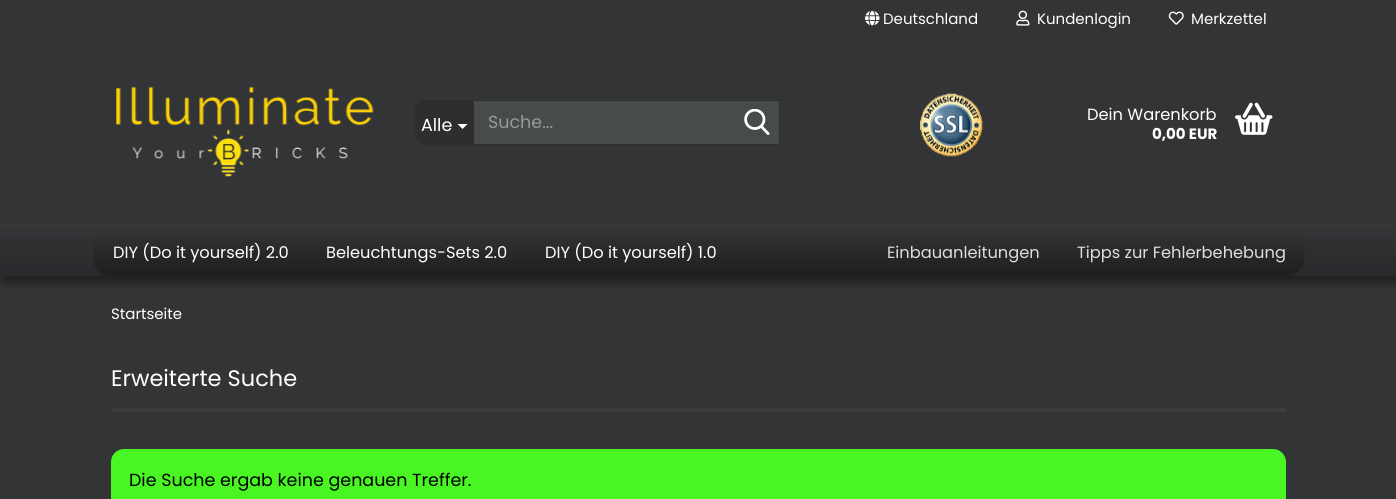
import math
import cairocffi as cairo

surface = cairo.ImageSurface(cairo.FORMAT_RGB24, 1396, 499)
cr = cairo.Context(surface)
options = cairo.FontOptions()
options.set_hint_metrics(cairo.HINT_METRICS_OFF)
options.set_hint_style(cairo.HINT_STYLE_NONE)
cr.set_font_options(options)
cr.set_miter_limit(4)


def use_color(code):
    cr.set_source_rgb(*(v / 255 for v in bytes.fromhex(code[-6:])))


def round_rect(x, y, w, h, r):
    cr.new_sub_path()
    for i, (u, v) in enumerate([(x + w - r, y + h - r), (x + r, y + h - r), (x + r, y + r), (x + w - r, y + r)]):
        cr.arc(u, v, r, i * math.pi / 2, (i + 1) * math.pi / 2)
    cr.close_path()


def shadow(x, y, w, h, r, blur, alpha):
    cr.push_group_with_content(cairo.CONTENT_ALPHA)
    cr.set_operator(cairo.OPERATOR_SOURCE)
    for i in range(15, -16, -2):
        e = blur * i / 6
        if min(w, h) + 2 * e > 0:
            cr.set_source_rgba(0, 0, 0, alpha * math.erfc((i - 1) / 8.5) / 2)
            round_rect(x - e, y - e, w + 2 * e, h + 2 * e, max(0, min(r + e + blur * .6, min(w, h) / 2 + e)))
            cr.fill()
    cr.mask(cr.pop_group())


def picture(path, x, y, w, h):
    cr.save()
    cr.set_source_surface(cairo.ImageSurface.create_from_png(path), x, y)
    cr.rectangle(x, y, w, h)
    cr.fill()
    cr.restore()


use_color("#333436")
cr.paint()
cr.save()
cr.rectangle(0, 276, 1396, 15)
cr.clip()
use_color("#000000")
shadow(3, 6, 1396, 275, 0, 6, 0.5)
cr.restore()
picture("img1.png", 865, 10, 15, 16)
cr.select_font_face("Poppins")
cr.set_font_size(15)
use_color("#ffffff")
cr.move_to(883, 24)
cr.show_text("Deutschland")
picture("img2.png", 1016, 10, 14, 16)
cr.move_to(1037, 24)
cr.show_text("Kundenlogin")
picture("img3.png", 1168, 11, 16, 14)
cr.move_to(1191, 24)
cr.show_text("Merkzettel")
picture("img4.png", 116, 86, 258, 91)
use_color("#2e2e2e")
cr.new_path()
cr.move_to(427, 100)
cr.line_to(473, 100)
cr.line_to(473, 145)
cr.line_to(427, 145)
cr.curve_to(420, 145, 414, 139, 414, 132)
cr.line_to(414, 113)
cr.curve_to(414, 106, 420, 100, 427, 100)
cr.close_path()
cr.fill()
cr.set_fill_rule(cairo.FILL_RULE_EVEN_ODD)
cr.new_path()
cr.move_to(426, 100)
cr.line_to(472, 100)
cr.line_to(472, 145)
cr.line_to(426, 145)
cr.curve_to(419, 145, 414, 139, 414, 132)
cr.line_to(414, 112)
cr.curve_to(414, 106, 419, 100, 426, 100)
cr.close_path()
cr.move_to(426, 101)
cr.line_to(472, 101)
cr.line_to(472, 144)
cr.line_to(426, 144)
cr.curve_to(420, 144, 415, 139, 415, 132)
cr.line_to(415, 112)
cr.curve_to(415, 106, 420, 101, 426, 101)
cr.close_path()
cr.fill()
cr.set_font_size(17.5)
use_color("#ffffff")
cr.move_to(421, 131)
cr.show_text("Alle")
cr.set_fill_rule(cairo.FILL_RULE_WINDING)
cr.new_path()
cr.move_to(457.5, 124)
cr.line_to(467.5, 124)
cr.line_to(462.5, 129)
cr.close_path()
cr.fill()
use_color("#474b4c")
cr.rectangle(473.5, 100.5, 306, 44)
cr.fill_preserve()
use_color("#2e2e2e")
cr.set_line_width(1)
cr.stroke()
use_color("#999999")
cr.move_to(488, 128)
cr.show_text("Suche...")
picture("img5.png", 744, 109, 26, 26)
picture("img6.png", 920, 93, 63, 64)
cr.set_font_size(16.25)
use_color("#ffffff")
cr.move_to(1087, 120)
cr.show_text("Dein Warenkorb")
cr.select_font_face("Poppins", cairo.FONT_SLANT_NORMAL, cairo.FONT_WEIGHT_BOLD)
cr.set_font_size(15)
cr.move_to(1152, 139)
cr.show_text("0,00 EUR")
picture("img7.png", 1235, 102, 38, 33)
gradient = cairo.LinearGradient(698, 226, 698, 276)
gradient.add_color_stop_rgba(0, 0.2, 0.204, 0.212, 1)
gradient.add_color_stop_rgba(1, 0.157, 0.161, 0.169, 1)
cr.set_source(gradient)
cr.rectangle(0, 237, 1396, 39)
cr.fill()
use_color("#3b3c3e")
cr.rectangle(0, 225, 1396, 1)
cr.fill()
use_color("#333436")
round_rect(93, 226, 1212, 50, 19)
cr.fill()
picture("img8.png", 93, 234, 1212, 42)
cr.select_font_face("Poppins")
cr.set_font_size(16.25)
use_color("#ffffff")
cr.move_to(113, 258)
cr.show_text("DIY (Do it yourself) 2.0")
cr.move_to(326, 258)
cr.show_text("Beleuchtungs-Sets 2.0")
cr.move_to(545, 258)
cr.show_text("DIY (Do it yourself) 1.0")
use_color("#dddddd")
cr.move_to(887, 258)
cr.show_text("Einbauanleitungen")
cr.move_to(1077, 258)
cr.show_text("Tipps zur Fehlerbehebung")
cr.set_font_size(15)
use_color("#ffffff")
cr.move_to(111, 319)
cr.show_text("Startseite")
use_color("#3b3c3e")
cr.rectangle(111, 408, 1175, 4)
cr.fill()
cr.set_font_size(22.5)
use_color("#ffffff")
cr.move_to(111, 386)
cr.show_text("Erweiterte Suche")
use_color("#49f624")
round_rect(111, 449, 1175, 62, 13)
cr.fill()
cr.set_font_size(17.5)
use_color("#000000")
cr.move_to(129, 486)
cr.show_text("Die Suche ergab keine genauen Treffer.")
surface.write_to_png("result.png")
